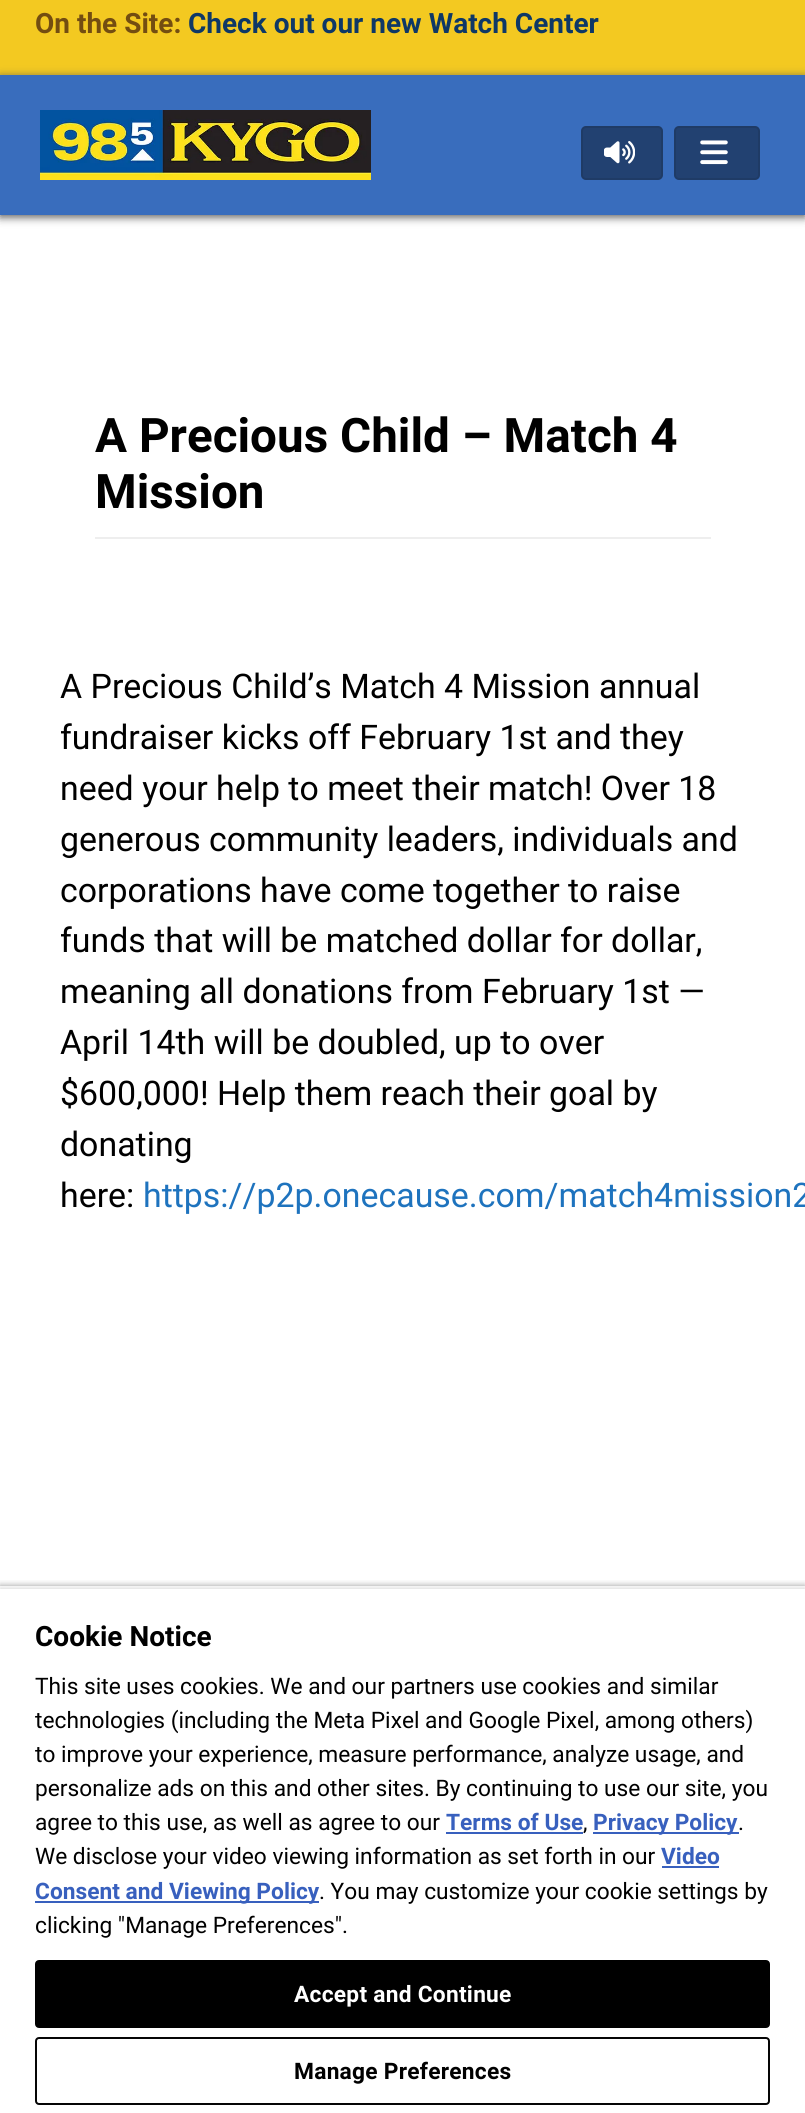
import math
import cairocffi as cairo

surface = cairo.ImageSurface(cairo.FORMAT_RGB24, 805, 2113)
cr = cairo.Context(surface)
options = cairo.FontOptions()
options.set_hint_metrics(cairo.HINT_METRICS_OFF)
options.set_hint_style(cairo.HINT_STYLE_NONE)
cr.set_font_options(options)
cr.set_miter_limit(4)


def use_color(code):
    cr.set_source_rgb(*(v / 255 for v in bytes.fromhex(code[-6:])))


def spaced_text(x, y, s, letter, word):
    cr.move_to(x, y)
    for ch in s:
        cr.show_text(ch)
        cr.rel_move_to(letter + word * (ch == ' '), 0)


def round_rect(x, y, w, h, r):
    cr.new_sub_path()
    for i, (u, v) in enumerate([(x + w - r, y + h - r), (x + r, y + h - r), (x + r, y + r), (x + w - r, y + r)]):
        cr.arc(u, v, r, i * math.pi / 2, (i + 1) * math.pi / 2)
    cr.close_path()


def shadow(x, y, w, h, r, blur, alpha):
    cr.push_group_with_content(cairo.CONTENT_ALPHA)
    cr.set_operator(cairo.OPERATOR_SOURCE)
    for i in range(15, -16, -2):
        e = blur * i / 6
        if min(w, h) + 2 * e > 0:
            cr.set_source_rgba(0, 0, 0, alpha * math.erfc((i - 1) / 8.5) / 2)
            round_rect(x - e, y - e, w + 2 * e, h + 2 * e, max(0, min(r + e + blur * .6, min(w, h) / 2 + e)))
            cr.fill()
    cr.mask(cr.pop_group())


def picture(path, x, y, w, h):
    cr.save()
    cr.set_source_surface(cairo.ImageSurface.create_from_png(path), x, y)
    cr.rectangle(x, y, w, h)
    cr.fill()
    cr.restore()


use_color("#ffffff")
cr.paint()
use_color("#f3c921")
cr.rectangle(0, 0, 805, 75)
cr.fill()
cr.select_font_face("Roboto", cairo.FONT_SLANT_NORMAL, cairo.FONT_WEIGHT_BOLD)
cr.set_font_size(28)
use_color("#734d11")
cr.move_to(35, 33)
cr.show_text("On the Site:")
use_color("#0e3866")
cr.move_to(188, 33)
cr.show_text("Check out our new Watch Center")
use_color("#555555")
shadow(0, 77, 805, 140, 0, 4.5, 1)
use_color("#396dbd")
cr.rectangle(0, 75, 805, 140)
cr.fill()
picture("img1.png", 40, 110, 331, 70)
use_color("#224171")
round_rect(581, 126, 82, 54, 5)
cr.fill()
round_rect(582, 127, 80, 52, 4)
cr.set_source_rgba(0, 0, 0, 0.1)
cr.stroke()
picture("img2.png", 604, 141, 31, 23)
use_color("#224171")
round_rect(674, 126, 86, 54, 5)
cr.fill()
round_rect(675, 127, 84, 52, 4)
cr.set_source_rgba(0, 0, 0, 0.1)
cr.stroke()
picture("img3.png", 700, 140, 28, 25)
use_color("#eeeeee")
cr.rectangle(95, 537, 616, 2)
cr.fill()
cr.set_font_size(47.6)
use_color("#000000")
cr.move_to(95, 452)
cr.show_text("A Precious Child – Match 4")
cr.move_to(95, 508)
cr.show_text("Mission")
cr.select_font_face("Roboto")
cr.set_font_size(33.9)
cr.move_to(60, 698)
cr.show_text("A Precious Child’s Match 4 Mission annual")
cr.move_to(60, 749)
cr.show_text("fundraiser kicks off February 1st and they")
cr.move_to(60, 800)
cr.show_text("need your help to meet their match! Over 18")
cr.move_to(60, 851)
cr.show_text("generous community leaders, individuals and")
cr.move_to(60, 902)
cr.show_text("corporations have come together to raise")
cr.move_to(60, 952)
cr.show_text("funds that will be matched dollar for dollar,")
cr.move_to(60, 1003)
cr.show_text("meaning all donations from February 1st —")
cr.move_to(60, 1054)
cr.show_text("April 14th will be doubled, up to over")
cr.move_to(60, 1105)
cr.show_text("$600,000! Help them reach their goal by")
cr.move_to(60, 1156)
cr.show_text("donating")
cr.move_to(60, 1207)
cr.show_text("here:")
use_color("#1e73be")
cr.move_to(143, 1207)
cr.show_text("https://p2p.onecause.com/match4mission2")
cr.save()
cr.rectangle(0, 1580, 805, 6)
cr.clip()
use_color("#000000")
shadow(0, 1586, 805, 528, 0, 3.5, 0.35)
cr.restore()
use_color("#000000")
shadow(0, 1589, 805, 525, 0, 3.5, 0.2)
use_color("#ffffff")
cr.rectangle(0, 1589, 805, 524)
cr.fill()
cr.select_font_face("Roboto", cairo.FONT_SLANT_NORMAL, cairo.FONT_WEIGHT_BOLD)
cr.set_font_size(28)
use_color("#000000")
cr.move_to(35, 1646)
cr.show_text("Cookie Notice")
cr.select_font_face("Roboto")
cr.set_font_size(22.75)
cr.move_to(35, 1694)
cr.show_text("This site uses cookies. We and our partners use cookies and similar")
cr.move_to(35, 1728)
cr.show_text("technologies (including the Meta Pixel and Google Pixel, among others)")
cr.move_to(35, 1762)
cr.show_text("to improve your experience, measure performance, analyze usage, and")
cr.move_to(35, 1796)
cr.show_text("personalize ads on this and other sites. By continuing to use our site, you")
cr.move_to(35, 1830)
cr.show_text("agree to this use, as well as agree to our")
cr.select_font_face("Roboto", cairo.FONT_SLANT_NORMAL, cairo.FONT_WEIGHT_BOLD)
use_color("#3860be")
cr.move_to(446, 1830)
cr.show_text("Terms of Use")
cr.rectangle(446, 1832, 137, 2)
cr.fill()
cr.select_font_face("Roboto")
use_color("#000000")
cr.move_to(583, 1830)
cr.show_text(",")
use_color("#3860be")
cr.rectangle(593, 1832, 146, 2)
cr.fill()
cr.select_font_face("Roboto", cairo.FONT_SLANT_NORMAL, cairo.FONT_WEIGHT_BOLD)
cr.move_to(593, 1830)
cr.show_text("Privacy Policy")
cr.select_font_face("Roboto")
use_color("#000000")
cr.move_to(738, 1830)
cr.show_text(".")
cr.move_to(35, 1864)
cr.show_text("We disclose your video viewing information as set forth in our")
cr.select_font_face("Roboto", cairo.FONT_SLANT_NORMAL, cairo.FONT_WEIGHT_BOLD)
use_color("#3860be")
cr.move_to(661, 1864)
cr.show_text("Video")
cr.rectangle(662, 1866, 57, 2)
cr.fill()
cr.rectangle(35, 1901, 284, 2)
cr.fill()
cr.move_to(35, 1899)
cr.show_text("Consent and Viewing Policy")
cr.select_font_face("Roboto")
use_color("#000000")
cr.move_to(319, 1899)
cr.show_text(". You may customize your cookie settings by")
cr.move_to(35, 1933)
cr.show_text("clicking \"Manage Preferences\".")
round_rect(36, 1961, 733, 66, 3)
cr.fill_preserve()
cr.stroke()
cr.select_font_face("Roboto", cairo.FONT_SLANT_NORMAL, cairo.FONT_WEIGHT_BOLD)
use_color("#ffffff")
spaced_text(294, 2002, "Accept and Continue", 0.25, 0)
round_rect(36, 2038, 733, 66, 3)
use_color("#050505")
cr.stroke()
use_color("#000000")
spaced_text(294, 2079, "Manage Preferences", 0.25, 0)
surface.write_to_png("result.png")
